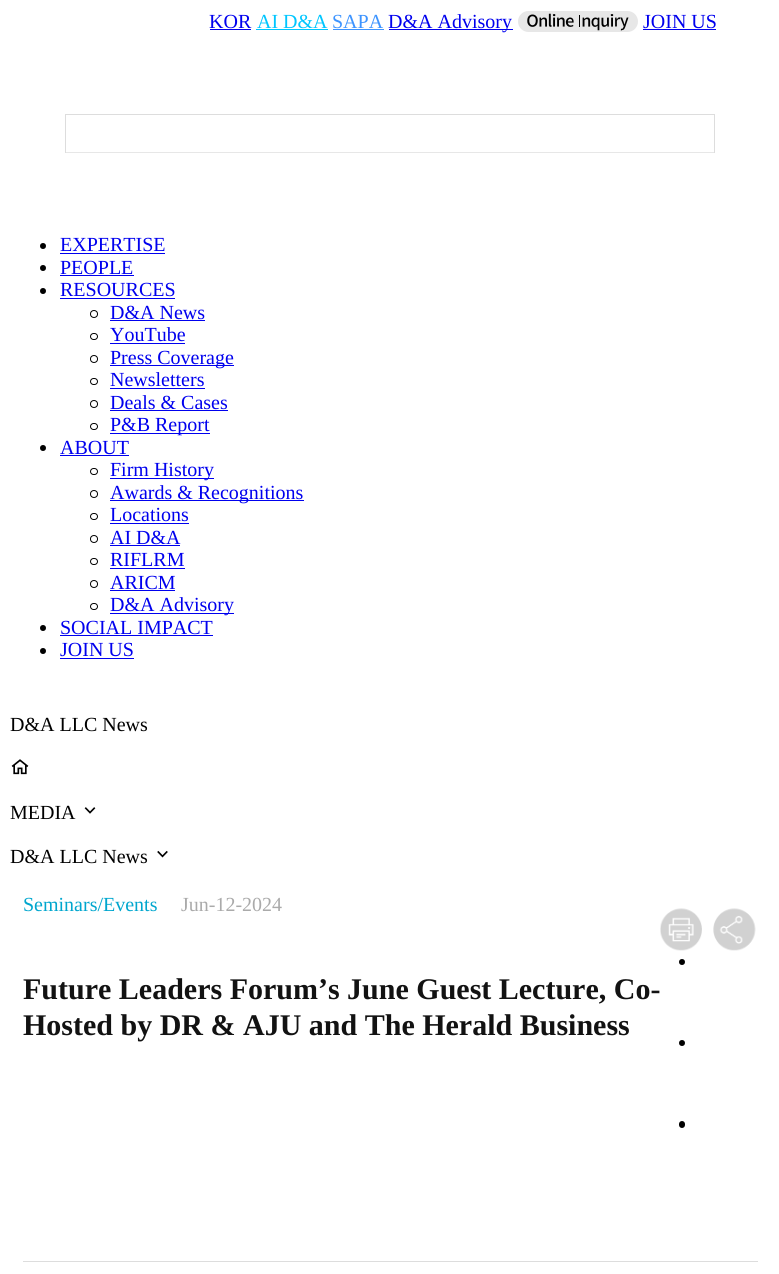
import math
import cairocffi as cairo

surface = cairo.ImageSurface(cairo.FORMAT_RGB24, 779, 1274)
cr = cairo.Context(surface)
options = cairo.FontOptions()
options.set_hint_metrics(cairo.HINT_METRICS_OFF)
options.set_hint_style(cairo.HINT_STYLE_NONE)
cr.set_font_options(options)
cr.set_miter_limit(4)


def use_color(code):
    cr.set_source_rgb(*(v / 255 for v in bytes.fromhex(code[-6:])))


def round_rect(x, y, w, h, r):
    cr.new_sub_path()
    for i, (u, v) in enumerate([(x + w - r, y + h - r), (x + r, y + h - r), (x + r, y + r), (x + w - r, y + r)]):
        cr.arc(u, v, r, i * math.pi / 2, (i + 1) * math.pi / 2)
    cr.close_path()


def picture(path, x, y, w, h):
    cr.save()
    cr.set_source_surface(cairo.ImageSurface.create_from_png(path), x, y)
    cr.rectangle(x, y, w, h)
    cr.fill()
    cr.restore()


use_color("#ffffff")
cr.paint()
cr.select_font_face("Liberation Serif")
cr.set_font_size(20)
use_color("#0000ee")
cr.move_to(209, 28)
cr.show_text("KOR")
cr.rectangle(210, 29, 41, 1)
cr.fill()
use_color("#00c6ff")
cr.move_to(257, 28)
cr.show_text("AI D&A")
cr.rectangle(256, 29, 72, 1)
cr.fill()
use_color("#3d94ff")
cr.move_to(332, 28)
cr.show_text("SAPA")
cr.rectangle(333, 29, 51, 1)
cr.fill()
use_color("#0000ee")
cr.rectangle(389, 29, 124, 1)
cr.fill()
cr.move_to(388, 28)
cr.show_text("D&A Advisory")
picture("img1.png", 518, 11, 120, 21)
cr.move_to(643, 28)
cr.show_text("JOIN US")
cr.rectangle(643, 29, 73, 1)
cr.fill()
cr.rectangle(65.5, 114.5, 649, 38)
use_color("#dddddd")
cr.set_line_width(1)
cr.stroke()
cr.set_source_rgba(1, 1, 1, 0.3)
cr.rectangle(66, 152, 648, 1)
cr.fill()
use_color("#000000")
cr.arc(43, 246, 3, 0, 2 * math.pi)
cr.fill()
use_color("#0000ee")
cr.move_to(60, 251)
cr.show_text("EXPERTISE")
cr.rectangle(60, 253, 105, 1)
cr.fill()
use_color("#000000")
cr.arc(43, 268, 3, 0, 2 * math.pi)
cr.fill()
use_color("#0000ee")
cr.move_to(60, 274)
cr.show_text("PEOPLE")
cr.rectangle(60, 275, 74, 1)
cr.fill()
use_color("#000000")
cr.arc(43, 291, 3, 0, 2 * math.pi)
cr.fill()
use_color("#0000ee")
cr.move_to(60, 296)
cr.show_text("RESOURCES")
cr.rectangle(60, 298, 115, 1)
cr.fill()
cr.arc(94, 314, 3.5, 0, 2 * math.pi)
use_color("#000000")
cr.stroke()
use_color("#0000ee")
cr.move_to(110, 319)
cr.show_text("D&A News")
cr.rectangle(110, 320, 95, 1)
cr.fill()
round_rect(90.5, 333.5, 7, 6, 3)
use_color("#000000")
cr.stroke()
use_color("#0000ee")
cr.move_to(110, 341)
cr.show_text("YouTube")
cr.rectangle(110, 343, 75, 1)
cr.fill()
cr.arc(94, 359, 3.5, 0, 2 * math.pi)
use_color("#000000")
cr.stroke()
use_color("#0000ee")
cr.rectangle(110, 365, 124, 1)
cr.fill()
cr.move_to(110, 364)
cr.show_text("Press Coverage")
round_rect(90.5, 378.5, 7, 6, 3)
use_color("#000000")
cr.stroke()
use_color("#0000ee")
cr.move_to(110, 386)
cr.show_text("Newsletters")
cr.rectangle(110, 388, 95, 1)
cr.fill()
cr.arc(94, 404, 3.5, 0, 2 * math.pi)
use_color("#000000")
cr.stroke()
use_color("#0000ee")
cr.move_to(110, 409)
cr.show_text("Deals & Cases")
cr.rectangle(110, 410, 118, 1)
cr.fill()
round_rect(90.5, 423.5, 7, 6, 3)
use_color("#000000")
cr.stroke()
use_color("#0000ee")
cr.rectangle(110, 433, 100, 1)
cr.fill()
cr.move_to(110, 431)
cr.show_text("P&B Report")
use_color("#000000")
cr.new_path()
cr.arc(43, 448, 3, 0, 2 * math.pi)
cr.fill()
use_color("#0000ee")
cr.move_to(60, 454)
cr.show_text("ABOUT")
cr.rectangle(60, 455, 69, 1)
cr.fill()
round_rect(90.5, 468.5, 7, 6, 3)
use_color("#000000")
cr.stroke()
use_color("#0000ee")
cr.rectangle(110, 478, 104, 1)
cr.fill()
cr.move_to(110, 476)
cr.show_text("Firm History")
cr.new_path()
cr.arc(94, 494, 3.5, 0, 2 * math.pi)
use_color("#000000")
cr.stroke()
use_color("#0000ee")
cr.rectangle(110, 500, 194, 1)
cr.fill()
cr.move_to(110, 499)
cr.show_text("Awards & Recognitions")
round_rect(90.5, 513.5, 7, 6, 3)
use_color("#000000")
cr.stroke()
use_color("#0000ee")
cr.move_to(110, 521)
cr.show_text("Locations")
cr.rectangle(110, 523, 79, 1)
cr.fill()
cr.arc(94, 539, 3.5, 0, 2 * math.pi)
use_color("#000000")
cr.stroke()
use_color("#0000ee")
cr.move_to(110, 544)
cr.show_text("AI D&A")
cr.rectangle(110, 545, 70, 1)
cr.fill()
round_rect(90.5, 558.5, 7, 6, 3)
use_color("#000000")
cr.stroke()
use_color("#0000ee")
cr.move_to(110, 566)
cr.show_text("RIFLRM")
cr.rectangle(110, 568, 75, 1)
cr.fill()
cr.arc(94, 584, 3.5, 0, 2 * math.pi)
use_color("#000000")
cr.stroke()
use_color("#0000ee")
cr.move_to(110, 589)
cr.show_text("ARICM")
cr.rectangle(110, 590, 65, 1)
cr.fill()
round_rect(90.5, 603.5, 7, 6, 3)
use_color("#000000")
cr.stroke()
use_color("#0000ee")
cr.rectangle(110, 613, 124, 1)
cr.fill()
cr.move_to(110, 611)
cr.show_text("D&A Advisory")
use_color("#000000")
cr.new_path()
cr.arc(43, 628, 3, 0, 2 * math.pi)
cr.fill()
use_color("#0000ee")
cr.move_to(60, 634)
cr.show_text("SOCIAL IMPACT")
cr.rectangle(60, 635, 153, 1)
cr.fill()
use_color("#000000")
cr.arc(43, 651, 3, 0, 2 * math.pi)
cr.fill()
use_color("#0000ee")
cr.move_to(60, 656)
cr.show_text("JOIN US")
cr.rectangle(60, 658, 74, 1)
cr.fill()
use_color("#000000")
cr.move_to(10, 731)
cr.show_text("D&A LLC News")
picture("img2.png", 11, 759, 18, 16)
cr.move_to(10, 819)
cr.show_text("MEDIA")
picture("img3.png", 84, 807, 12, 7)
cr.move_to(10, 863)
cr.show_text("D&A LLC News")
picture("img4.png", 157, 850, 11, 8)
use_color("#00a6ce")
cr.move_to(23, 911)
cr.show_text("Seminars/Events")
use_color("#aaaaaa")
cr.move_to(181, 911)
cr.show_text("Jun-12-2024")
picture("img5.png", 660, 908, 42, 43)
picture("img6.png", 713, 908, 43, 43)
cr.select_font_face("Liberation Serif", cairo.FONT_SLANT_NORMAL, cairo.FONT_WEIGHT_BOLD)
cr.set_font_size(30)
use_color("#121212")
cr.move_to(23, 999)
cr.show_text("Future Leaders Forum’s June Guest Lecture, Co-")
cr.move_to(23, 1035)
cr.show_text("Hosted by DR & AJU and The Herald Business")
use_color("#dddddd")
cr.rectangle(23, 1261, 735, 1)
cr.fill()
use_color("#000000")
cr.arc(682, 962, 3, 0, 2 * math.pi)
cr.fill()
cr.arc(682, 1043, 3, 0, 2 * math.pi)
cr.fill()
round_rect(679, 1121, 6, 7, 3)
cr.fill()
surface.write_to_png("result.png")
